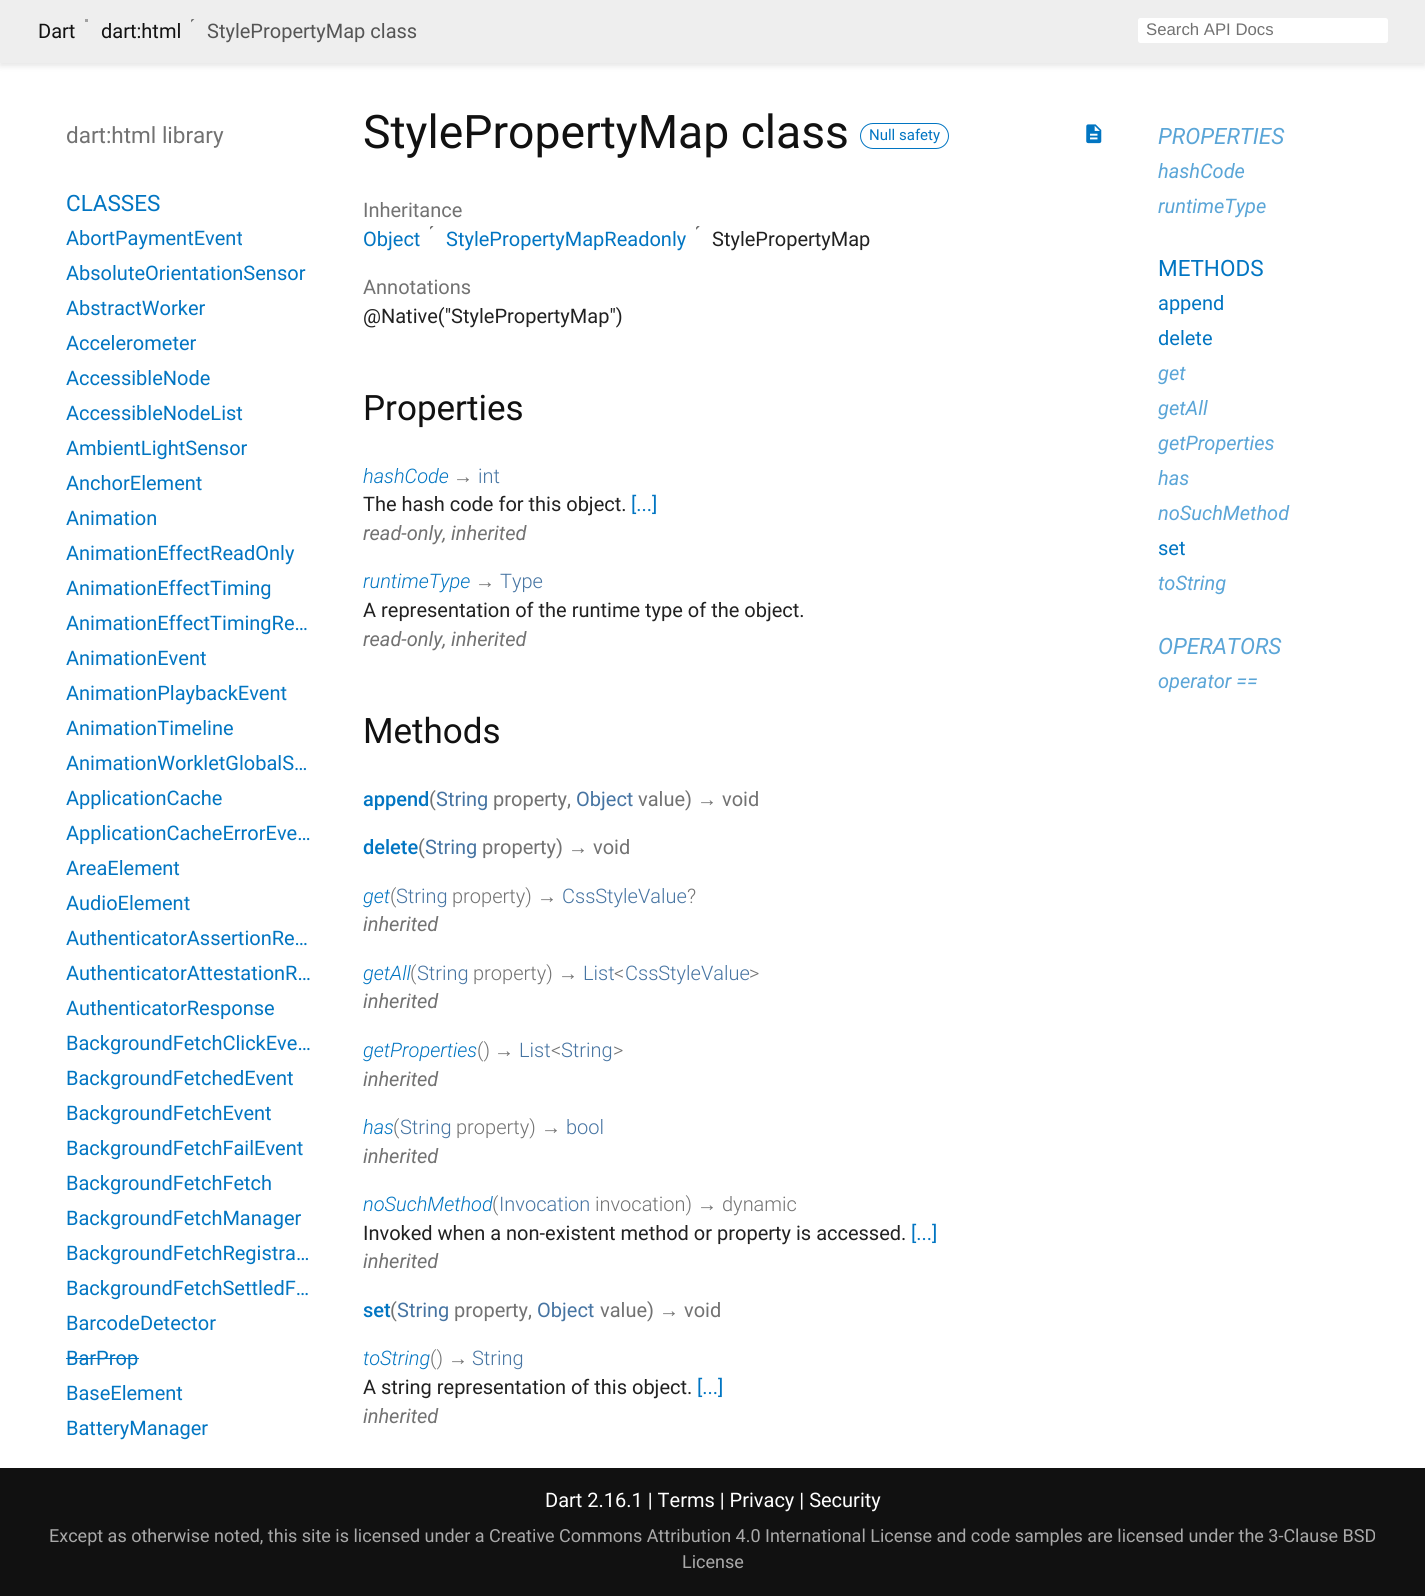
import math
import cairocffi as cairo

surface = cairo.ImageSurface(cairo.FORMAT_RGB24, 1425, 1596)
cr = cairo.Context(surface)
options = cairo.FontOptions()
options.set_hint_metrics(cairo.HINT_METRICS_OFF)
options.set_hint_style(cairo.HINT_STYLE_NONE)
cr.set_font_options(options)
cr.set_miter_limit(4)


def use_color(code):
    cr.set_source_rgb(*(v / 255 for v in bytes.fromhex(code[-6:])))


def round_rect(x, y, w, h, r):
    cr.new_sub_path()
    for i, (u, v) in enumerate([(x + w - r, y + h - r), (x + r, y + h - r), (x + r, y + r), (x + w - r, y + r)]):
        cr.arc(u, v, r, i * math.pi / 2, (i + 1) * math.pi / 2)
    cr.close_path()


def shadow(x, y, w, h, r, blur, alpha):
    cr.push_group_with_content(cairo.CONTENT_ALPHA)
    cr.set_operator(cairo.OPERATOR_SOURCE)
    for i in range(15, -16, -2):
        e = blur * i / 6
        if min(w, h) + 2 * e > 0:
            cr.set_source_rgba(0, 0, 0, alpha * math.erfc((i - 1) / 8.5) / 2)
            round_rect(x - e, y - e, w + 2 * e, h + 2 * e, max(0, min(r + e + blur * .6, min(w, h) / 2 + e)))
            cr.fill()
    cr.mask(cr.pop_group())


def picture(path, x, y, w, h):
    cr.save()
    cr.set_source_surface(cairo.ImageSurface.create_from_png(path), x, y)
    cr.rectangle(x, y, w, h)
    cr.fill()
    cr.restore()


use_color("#ffffff")
cr.paint()
use_color("#000000")
shadow(0, 4, 1425, 62, 0, 3, 0.1)
use_color("#eeeeee")
cr.rectangle(0, 0, 1425, 63)
cr.fill()
cr.select_font_face("Roboto")
cr.set_font_size(20)
use_color("#111111")
cr.move_to(38, 38)
cr.show_text("Dart")
use_color("#a1a1a1")
cr.rectangle(85, 19, 3, 3)
cr.fill()
use_color("#111111")
cr.move_to(101, 38)
cr.show_text("dart:html")
picture("img1.png", 191, 19, 4, 4)
use_color("#555555")
cr.move_to(207, 38)
cr.show_text("StylePropertyMap class")
use_color("#ffffff")
round_rect(1138, 18, 250, 25, 2.5)
cr.fill()
cr.select_font_face("Liberation Sans")
cr.set_font_size(16.75)
use_color("#727272")
cr.move_to(1146, 35)
cr.show_text("Search API Docs")
cr.select_font_face("Roboto")
cr.set_font_size(22.5)
cr.move_to(66, 143)
cr.show_text("dart:html library")
use_color("#0175c2")
cr.move_to(66, 211)
cr.show_text("CLASSES")
cr.set_font_size(20)
cr.move_to(66, 245)
cr.show_text("AbortPaymentEvent")
cr.move_to(66, 280)
cr.show_text("AbsoluteOrientationSensor")
cr.move_to(66, 315)
cr.show_text("AbstractWorker")
cr.move_to(66, 350)
cr.show_text("Accelerometer")
cr.move_to(66, 385)
cr.show_text("AccessibleNode")
cr.move_to(66, 420)
cr.show_text("AccessibleNodeList")
cr.move_to(66, 455)
cr.show_text("AmbientLightSensor")
cr.move_to(66, 490)
cr.show_text("AnchorElement")
cr.move_to(66, 525)
cr.show_text("Animation")
cr.move_to(66, 560)
cr.show_text("AnimationEffectReadOnly")
cr.move_to(66, 595)
cr.show_text("AnimationEffectTiming")
cr.move_to(66, 630)
cr.show_text("AnimationEffectTimingRe…")
cr.move_to(66, 665)
cr.show_text("AnimationEvent")
cr.move_to(66, 700)
cr.show_text("AnimationPlaybackEvent")
cr.move_to(66, 735)
cr.show_text("AnimationTimeline")
cr.move_to(66, 770)
cr.show_text("AnimationWorkletGlobalS…")
cr.move_to(66, 805)
cr.show_text("ApplicationCache")
cr.move_to(66, 840)
cr.show_text("ApplicationCacheErrorEve…")
cr.move_to(66, 875)
cr.show_text("AreaElement")
cr.move_to(66, 910)
cr.show_text("AudioElement")
cr.move_to(66, 945)
cr.show_text("AuthenticatorAssertionRe…")
cr.move_to(66, 980)
cr.show_text("AuthenticatorAttestationR…")
cr.move_to(66, 1015)
cr.show_text("AuthenticatorResponse")
cr.move_to(66, 1050)
cr.show_text("BackgroundFetchClickEve…")
cr.move_to(66, 1085)
cr.show_text("BackgroundFetchedEvent")
cr.move_to(66, 1120)
cr.show_text("BackgroundFetchEvent")
cr.move_to(66, 1155)
cr.show_text("BackgroundFetchFailEvent")
cr.move_to(66, 1190)
cr.show_text("BackgroundFetchFetch")
cr.move_to(66, 1225)
cr.show_text("BackgroundFetchManager")
cr.move_to(66, 1260)
cr.show_text("BackgroundFetchRegistra…")
cr.move_to(66, 1295)
cr.show_text("BackgroundFetchSettledF…")
cr.move_to(66, 1330)
cr.show_text("BarcodeDetector")
cr.move_to(66, 1365)
cr.show_text("BarProp")
cr.rectangle(66, 1358, 73, 1)
cr.fill()
cr.move_to(66, 1400)
cr.show_text("BaseElement")
cr.move_to(66, 1435)
cr.show_text("BatteryManager")
cr.set_font_size(46.25)
use_color("#111111")
cr.move_to(363, 148)
cr.show_text("StylePropertyMap class")
round_rect(860.5, 123.5, 88, 25, 12.5)
use_color("#0175c2")
cr.set_line_width(1)
cr.stroke()
cr.set_font_size(15)
cr.move_to(869, 140)
cr.show_text("Null safety")
picture("img2.png", 1086, 124, 16, 20)
cr.set_font_size(20)
use_color("#727272")
cr.move_to(363, 217)
cr.show_text("Inheritance")
use_color("#0175c2")
cr.move_to(363, 246)
cr.show_text("Object")
picture("img3.png", 430, 226, 4, 4)
cr.move_to(446, 246)
cr.show_text("StylePropertyMapReadonly")
picture("img4.png", 696, 226, 4, 4)
use_color("#212121")
cr.move_to(712, 246)
cr.show_text("StylePropertyMap")
use_color("#727272")
cr.move_to(363, 294)
cr.show_text("Annotations")
use_color("#212121")
cr.move_to(363, 323)
cr.show_text("@Native(\"StylePropertyMap\")")
cr.set_font_size(35)
use_color("#111111")
cr.move_to(363, 420)
cr.show_text("Properties")
cr.select_font_face("Roboto Light", cairo.FONT_SLANT_ITALIC)
cr.set_font_size(20)
use_color("#0175c2")
cr.move_to(363, 483)
cr.show_text("hashCode")
cr.select_font_face("Liberation Sans")
use_color("#727272")
cr.move_to(453, 483)
cr.show_text("→")
cr.select_font_face("Roboto Light")
use_color("#4674a2")
cr.move_to(478, 483)
cr.show_text("int")
cr.select_font_face("Roboto")
use_color("#212121")
cr.move_to(363, 511)
cr.show_text("The hash code for this object.")
use_color("#0175c2")
cr.move_to(631, 511)
cr.show_text("[...]")
cr.select_font_face("Roboto", cairo.FONT_SLANT_ITALIC)
use_color("#727272")
cr.move_to(363, 540)
cr.show_text("read-only, inherited")
cr.select_font_face("Roboto Light", cairo.FONT_SLANT_ITALIC)
use_color("#0175c2")
cr.move_to(363, 588)
cr.show_text("runtimeType")
cr.select_font_face("Liberation Sans")
use_color("#727272")
cr.move_to(475, 588)
cr.show_text("→")
cr.select_font_face("Roboto Light")
use_color("#4674a2")
cr.move_to(500, 588)
cr.show_text("Type")
cr.select_font_face("Roboto")
use_color("#212121")
cr.move_to(363, 617)
cr.show_text("A representation of the runtime type of the object.")
cr.select_font_face("Roboto", cairo.FONT_SLANT_ITALIC)
use_color("#727272")
cr.move_to(363, 646)
cr.show_text("read-only, inherited")
cr.select_font_face("Roboto")
cr.set_font_size(35)
use_color("#111111")
cr.move_to(363, 743)
cr.show_text("Methods")
cr.select_font_face("Roboto Medium")
cr.set_font_size(20)
use_color("#0175c2")
cr.move_to(363, 806)
cr.show_text("append")
cr.select_font_face("Roboto")
use_color("#727272")
cr.move_to(429, 806)
cr.show_text("(")
use_color("#4674a2")
cr.move_to(436, 806)
cr.show_text("String")
use_color("#727272")
cr.move_to(493, 806)
cr.show_text("property,")
use_color("#4674a2")
cr.move_to(576, 806)
cr.show_text("Object")
use_color("#727272")
cr.move_to(638, 806)
cr.show_text("value)")
cr.select_font_face("Liberation Sans")
cr.move_to(697, 806)
cr.show_text("→")
cr.select_font_face("Roboto")
cr.move_to(722, 806)
cr.show_text("void")
cr.select_font_face("Roboto Medium")
use_color("#0175c2")
cr.move_to(363, 854)
cr.show_text("delete")
cr.select_font_face("Roboto")
use_color("#727272")
cr.move_to(418, 854)
cr.show_text("(")
use_color("#4674a2")
cr.move_to(425, 854)
cr.show_text("String")
use_color("#727272")
cr.move_to(482, 854)
cr.show_text("property)")
cr.select_font_face("Liberation Sans")
cr.move_to(568, 854)
cr.show_text("→")
cr.select_font_face("Roboto")
cr.move_to(593, 854)
cr.show_text("void")
cr.select_font_face("Roboto Light", cairo.FONT_SLANT_ITALIC)
use_color("#0175c2")
cr.move_to(363, 903)
cr.show_text("get")
cr.select_font_face("Roboto Light")
use_color("#727272")
cr.move_to(390, 903)
cr.show_text("(")
use_color("#4674a2")
cr.move_to(396, 903)
cr.show_text("String")
use_color("#727272")
cr.move_to(452, 903)
cr.show_text("property)")
cr.select_font_face("Liberation Sans")
cr.move_to(537, 903)
cr.show_text("→")
cr.select_font_face("Roboto Light")
use_color("#4674a2")
cr.move_to(562, 903)
cr.show_text("CssStyleValue")
use_color("#727272")
cr.move_to(687, 903)
cr.show_text("?")
cr.select_font_face("Roboto", cairo.FONT_SLANT_ITALIC)
cr.move_to(363, 931)
cr.show_text("inherited")
cr.select_font_face("Roboto Light", cairo.FONT_SLANT_ITALIC)
use_color("#0175c2")
cr.move_to(363, 980)
cr.show_text("getAll")
cr.select_font_face("Roboto Light")
use_color("#727272")
cr.move_to(410, 980)
cr.show_text("(")
use_color("#4674a2")
cr.move_to(417, 980)
cr.show_text("String")
use_color("#727272")
cr.move_to(473, 980)
cr.show_text("property)")
cr.select_font_face("Liberation Sans")
cr.move_to(558, 980)
cr.show_text("→")
cr.select_font_face("Roboto Light")
use_color("#4674a2")
cr.move_to(583, 980)
cr.show_text("List")
use_color("#727272")
cr.move_to(614, 980)
cr.show_text("<")
use_color("#4674a2")
cr.move_to(625, 980)
cr.show_text("CssStyleValue")
use_color("#727272")
cr.move_to(749, 980)
cr.show_text(">")
cr.select_font_face("Roboto", cairo.FONT_SLANT_ITALIC)
cr.move_to(363, 1008)
cr.show_text("inherited")
cr.select_font_face("Roboto Light", cairo.FONT_SLANT_ITALIC)
use_color("#0175c2")
cr.move_to(363, 1057)
cr.show_text("getProperties")
cr.select_font_face("Roboto Light")
use_color("#727272")
cr.move_to(477, 1057)
cr.show_text("()")
cr.select_font_face("Liberation Sans")
cr.move_to(494, 1057)
cr.show_text("→")
cr.select_font_face("Roboto Light")
use_color("#4674a2")
cr.move_to(519, 1057)
cr.show_text("List")
use_color("#727272")
cr.move_to(551, 1057)
cr.show_text("<")
use_color("#4674a2")
cr.move_to(561, 1057)
cr.show_text("String")
use_color("#727272")
cr.move_to(613, 1057)
cr.show_text(">")
cr.select_font_face("Roboto", cairo.FONT_SLANT_ITALIC)
cr.move_to(363, 1086)
cr.show_text("inherited")
cr.select_font_face("Roboto Light", cairo.FONT_SLANT_ITALIC)
use_color("#0175c2")
cr.move_to(363, 1134)
cr.show_text("has")
cr.select_font_face("Roboto Light")
use_color("#727272")
cr.move_to(393, 1134)
cr.show_text("(")
use_color("#4674a2")
cr.move_to(400, 1134)
cr.show_text("String")
use_color("#727272")
cr.move_to(456, 1134)
cr.show_text("property)")
cr.select_font_face("Liberation Sans")
cr.move_to(541, 1134)
cr.show_text("→")
cr.select_font_face("Roboto Light")
use_color("#4674a2")
cr.move_to(566, 1134)
cr.show_text("bool")
cr.select_font_face("Roboto", cairo.FONT_SLANT_ITALIC)
use_color("#727272")
cr.move_to(363, 1163)
cr.show_text("inherited")
cr.select_font_face("Roboto Light", cairo.FONT_SLANT_ITALIC)
use_color("#0175c2")
cr.move_to(363, 1211)
cr.show_text("noSuchMethod")
cr.select_font_face("Roboto Light")
use_color("#727272")
cr.move_to(492, 1211)
cr.show_text("(")
use_color("#4674a2")
cr.move_to(499, 1211)
cr.show_text("Invocation")
use_color("#727272")
cr.move_to(595, 1211)
cr.show_text("invocation)")
cr.select_font_face("Liberation Sans")
cr.move_to(697, 1211)
cr.show_text("→")
cr.select_font_face("Roboto Light")
cr.move_to(722, 1211)
cr.show_text("dynamic")
cr.select_font_face("Roboto")
use_color("#212121")
cr.move_to(363, 1240)
cr.show_text("Invoked when a non-existent method or property is accessed.")
use_color("#0175c2")
cr.move_to(911, 1240)
cr.show_text("[...]")
cr.select_font_face("Roboto", cairo.FONT_SLANT_ITALIC)
use_color("#727272")
cr.move_to(363, 1268)
cr.show_text("inherited")
cr.select_font_face("Roboto Medium")
use_color("#0175c2")
cr.move_to(363, 1317)
cr.show_text("set")
cr.select_font_face("Roboto")
use_color("#727272")
cr.move_to(390, 1317)
cr.show_text("(")
use_color("#4674a2")
cr.move_to(397, 1317)
cr.show_text("String")
use_color("#727272")
cr.move_to(454, 1317)
cr.show_text("property,")
use_color("#4674a2")
cr.move_to(537, 1317)
cr.show_text("Object")
use_color("#727272")
cr.move_to(600, 1317)
cr.show_text("value)")
cr.select_font_face("Liberation Sans")
cr.move_to(659, 1317)
cr.show_text("→")
cr.select_font_face("Roboto")
cr.move_to(684, 1317)
cr.show_text("void")
cr.select_font_face("Roboto Light", cairo.FONT_SLANT_ITALIC)
use_color("#0175c2")
cr.move_to(363, 1365)
cr.show_text("toString")
cr.select_font_face("Roboto Light")
use_color("#727272")
cr.move_to(430, 1365)
cr.show_text("()")
cr.select_font_face("Liberation Sans")
cr.move_to(448, 1365)
cr.show_text("→")
cr.select_font_face("Roboto Light")
use_color("#4674a2")
cr.move_to(472, 1365)
cr.show_text("String")
cr.select_font_face("Roboto")
use_color("#212121")
cr.move_to(363, 1394)
cr.show_text("A string representation of this object.")
use_color("#0175c2")
cr.move_to(697, 1394)
cr.show_text("[...]")
cr.select_font_face("Roboto", cairo.FONT_SLANT_ITALIC)
use_color("#727272")
cr.move_to(363, 1423)
cr.show_text("inherited")
cr.set_font_size(22.5)
use_color("#5aa5d7")
cr.move_to(1158, 144)
cr.show_text("PROPERTIES")
cr.set_font_size(20)
cr.move_to(1158, 178)
cr.show_text("hashCode")
cr.move_to(1158, 213)
cr.show_text("runtimeType")
cr.select_font_face("Roboto")
cr.set_font_size(22.5)
use_color("#0175c2")
cr.move_to(1158, 276)
cr.show_text("METHODS")
cr.set_font_size(20)
cr.move_to(1158, 310)
cr.show_text("append")
cr.move_to(1158, 345)
cr.show_text("delete")
cr.select_font_face("Roboto", cairo.FONT_SLANT_ITALIC)
use_color("#5aa5d7")
cr.move_to(1158, 380)
cr.show_text("get")
cr.move_to(1158, 415)
cr.show_text("getAll")
cr.move_to(1158, 450)
cr.show_text("getProperties")
cr.move_to(1158, 485)
cr.show_text("has")
cr.move_to(1158, 520)
cr.show_text("noSuchMethod")
cr.select_font_face("Roboto")
use_color("#0175c2")
cr.move_to(1158, 555)
cr.show_text("set")
cr.select_font_face("Roboto", cairo.FONT_SLANT_ITALIC)
use_color("#5aa5d7")
cr.move_to(1158, 590)
cr.show_text("toString")
cr.set_font_size(22.5)
cr.move_to(1158, 654)
cr.show_text("OPERATORS")
cr.set_font_size(20)
cr.move_to(1158, 688)
cr.show_text("operator ==")
use_color("#111111")
cr.rectangle(0, 1468, 1425, 128)
cr.fill()
cr.select_font_face("Roboto")
use_color("#ffffff")
cr.move_to(545, 1507)
cr.show_text("Dart 2.16.1 | Terms | Privacy | Security")
cr.set_font_size(18)
use_color("#a9a9a9")
cr.move_to(49, 1542)
cr.show_text("Except as otherwise noted, this site is licensed under a Creative Commons Attribution 4.0 International License and code samples are licensed under the 3-Clause BSD")
cr.move_to(682, 1568)
cr.show_text("License")
surface.write_to_png("result.png")
